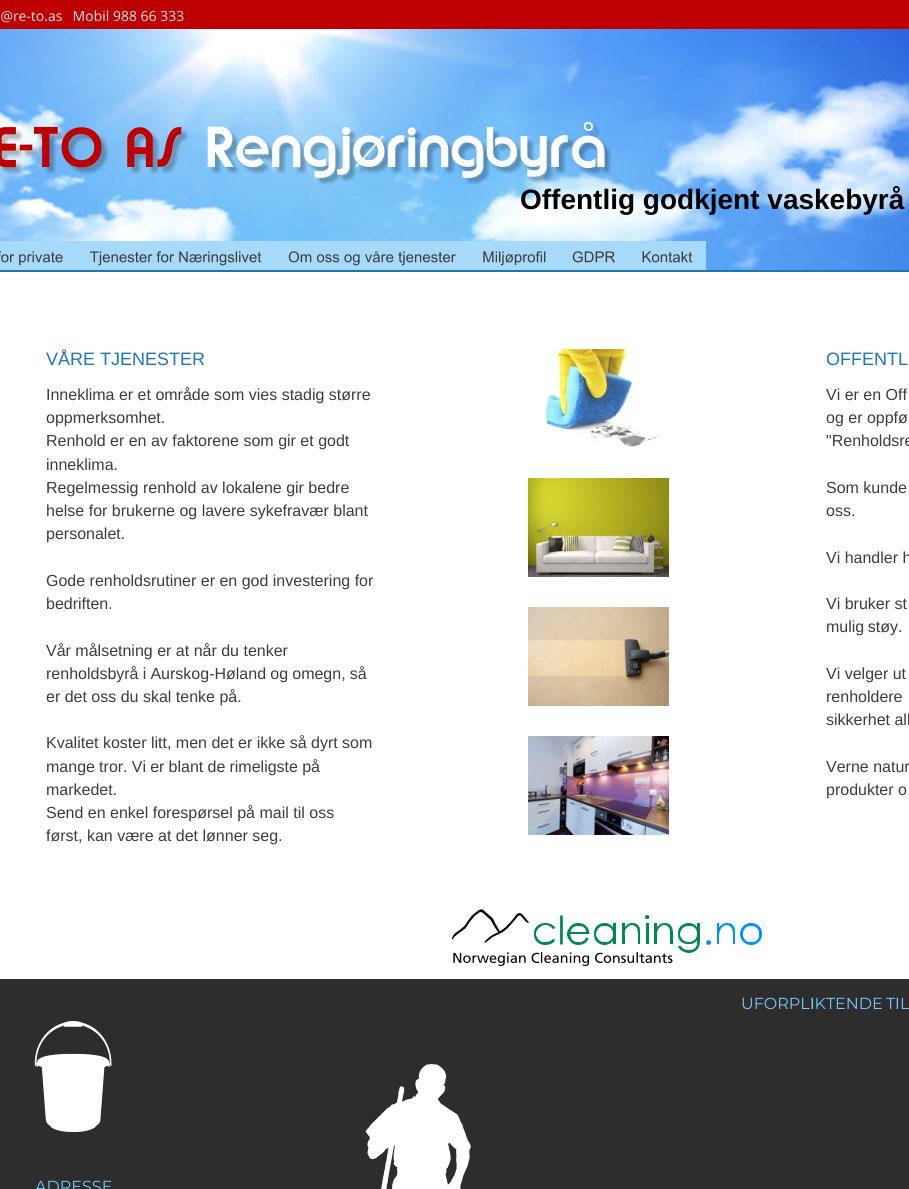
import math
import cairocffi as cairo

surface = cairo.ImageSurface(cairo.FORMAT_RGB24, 909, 1189)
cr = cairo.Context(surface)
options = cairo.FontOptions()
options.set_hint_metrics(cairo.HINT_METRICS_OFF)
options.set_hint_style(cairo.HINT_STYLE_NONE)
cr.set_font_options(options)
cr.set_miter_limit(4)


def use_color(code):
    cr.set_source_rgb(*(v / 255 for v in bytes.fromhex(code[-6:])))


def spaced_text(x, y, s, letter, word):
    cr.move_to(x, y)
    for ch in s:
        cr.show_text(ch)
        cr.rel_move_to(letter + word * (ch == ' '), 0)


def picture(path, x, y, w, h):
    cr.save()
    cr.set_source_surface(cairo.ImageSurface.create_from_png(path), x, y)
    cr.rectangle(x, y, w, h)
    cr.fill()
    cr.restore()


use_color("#ffffff")
cr.paint()
use_color("#bf0000")
cr.rectangle(0, 0, 909, 29)
cr.fill()
picture("img1.png", 1, 10, 183, 13)
picture("img2.png", 0, 29, 909, 241)
picture("img3.png", 0, 121, 612, 64)
cr.select_font_face("Liberation Sans", cairo.FONT_SLANT_NORMAL, cairo.FONT_WEIGHT_BOLD)
cr.set_font_size(28)
use_color("#000000")
cr.move_to(520, 209)
cr.show_text("Offentlig godkjent vaskebyrå")
picture("img4.png", 0, 241, 76, 29)
picture("img5.png", 76, 241, 199, 29)
picture("img6.png", 275, 241, 194, 29)
picture("img7.png", 469, 241, 90, 29)
picture("img8.png", 559, 241, 70, 29)
picture("img9.png", 629, 241, 77, 29)
use_color("#1c77b1")
cr.rectangle(0, 270, 909, 2)
cr.fill()
cr.select_font_face("Liberation Sans")
cr.set_font_size(18)
cr.move_to(46, 365)
cr.show_text("VÅRE TJENESTER")
cr.set_font_size(16)
use_color("#3b3c40")
cr.move_to(46, 400)
cr.show_text("Inneklima er et område som vies stadig større")
cr.move_to(46, 423)
cr.show_text("oppmerksomhet.")
cr.move_to(46, 446)
cr.show_text("Renhold er en av faktorene som gir et godt")
cr.move_to(46, 470)
cr.show_text("inneklima.")
cr.move_to(46, 493)
cr.show_text("Regelmessig renhold av lokalene gir bedre")
cr.move_to(46, 516)
cr.show_text("helse for brukerne og lavere sykefravær blant")
cr.move_to(46, 539)
cr.show_text("personalet.")
cr.move_to(46, 586)
cr.show_text("Gode renholdsrutiner er en god investering for")
cr.move_to(46, 609)
cr.show_text("bedriften.")
cr.move_to(46, 656)
cr.show_text("Vår målsetning er at når du tenker")
spaced_text(46, 679, "renholdsbyrå i Aurskog-Høland og omegn, så", 0, -0.25)
cr.move_to(46, 702)
cr.show_text("er det oss du skal tenke på.")
cr.move_to(46, 748)
cr.show_text("Kvalitet koster litt, men det er ikke så dyrt som")
spaced_text(46, 772, "mange tror. Vi er blant de rimeligste på", 0, -0.25)
cr.move_to(46, 795)
cr.show_text("markedet.")
cr.move_to(46, 818)
cr.show_text("Send en enkel forespørsel på mail til oss")
cr.move_to(46, 841)
cr.show_text("først, kan være at det lønner seg.")
picture("img10.png", 544, 349, 115, 98)
cr.set_font_size(18)
use_color("#1c77b1")
spaced_text(826, 365, "OFFENTL", 0, -1)
cr.set_font_size(16)
use_color("#3b3c40")
cr.move_to(826, 400)
cr.show_text("Vi er en Off")
cr.move_to(826, 423)
cr.show_text("og er oppfø")
cr.move_to(826, 446)
cr.show_text("\"Renholdsre")
cr.move_to(826, 493)
cr.show_text("Som kunde")
cr.move_to(826, 516)
cr.show_text("oss.")
cr.move_to(826, 563)
cr.show_text("Vi handler h")
cr.move_to(826, 609)
cr.show_text("Vi bruker st")
spaced_text(826, 632, "mulig støy.", 0, -1)
cr.move_to(826, 679)
cr.show_text("Vi velger ut")
cr.move_to(826, 702)
cr.show_text("renholdere")
cr.move_to(826, 725)
cr.show_text("sikkerhet all")
cr.move_to(826, 772)
cr.show_text("Verne natur")
cr.move_to(826, 795)
cr.show_text("produkter o")
picture("img11.png", 528, 478, 141, 99)
picture("img12.png", 528, 607, 141, 99)
picture("img13.png", 528, 736, 141, 99)
picture("img14.png", 452, 909, 310, 57)
use_color("#2d2d2d")
cr.rectangle(0, 979, 909, 210)
cr.fill()
cr.select_font_face("Montserrat")
use_color("#76c5f8")
spaced_text(741, 1009, "UFORPLIKTENDE TIL", 0, -1)
spaced_text(810, 1009, "I", 0, -1)
spaced_text(895, 1009, "I", 0, -1)
picture("img15.png", 34, 1021, 78, 111)
picture("img16.png", 365, 1064, 106, 125)
cr.move_to(35, 1192)
cr.show_text("ADRESSE")
surface.write_to_png("result.png")
